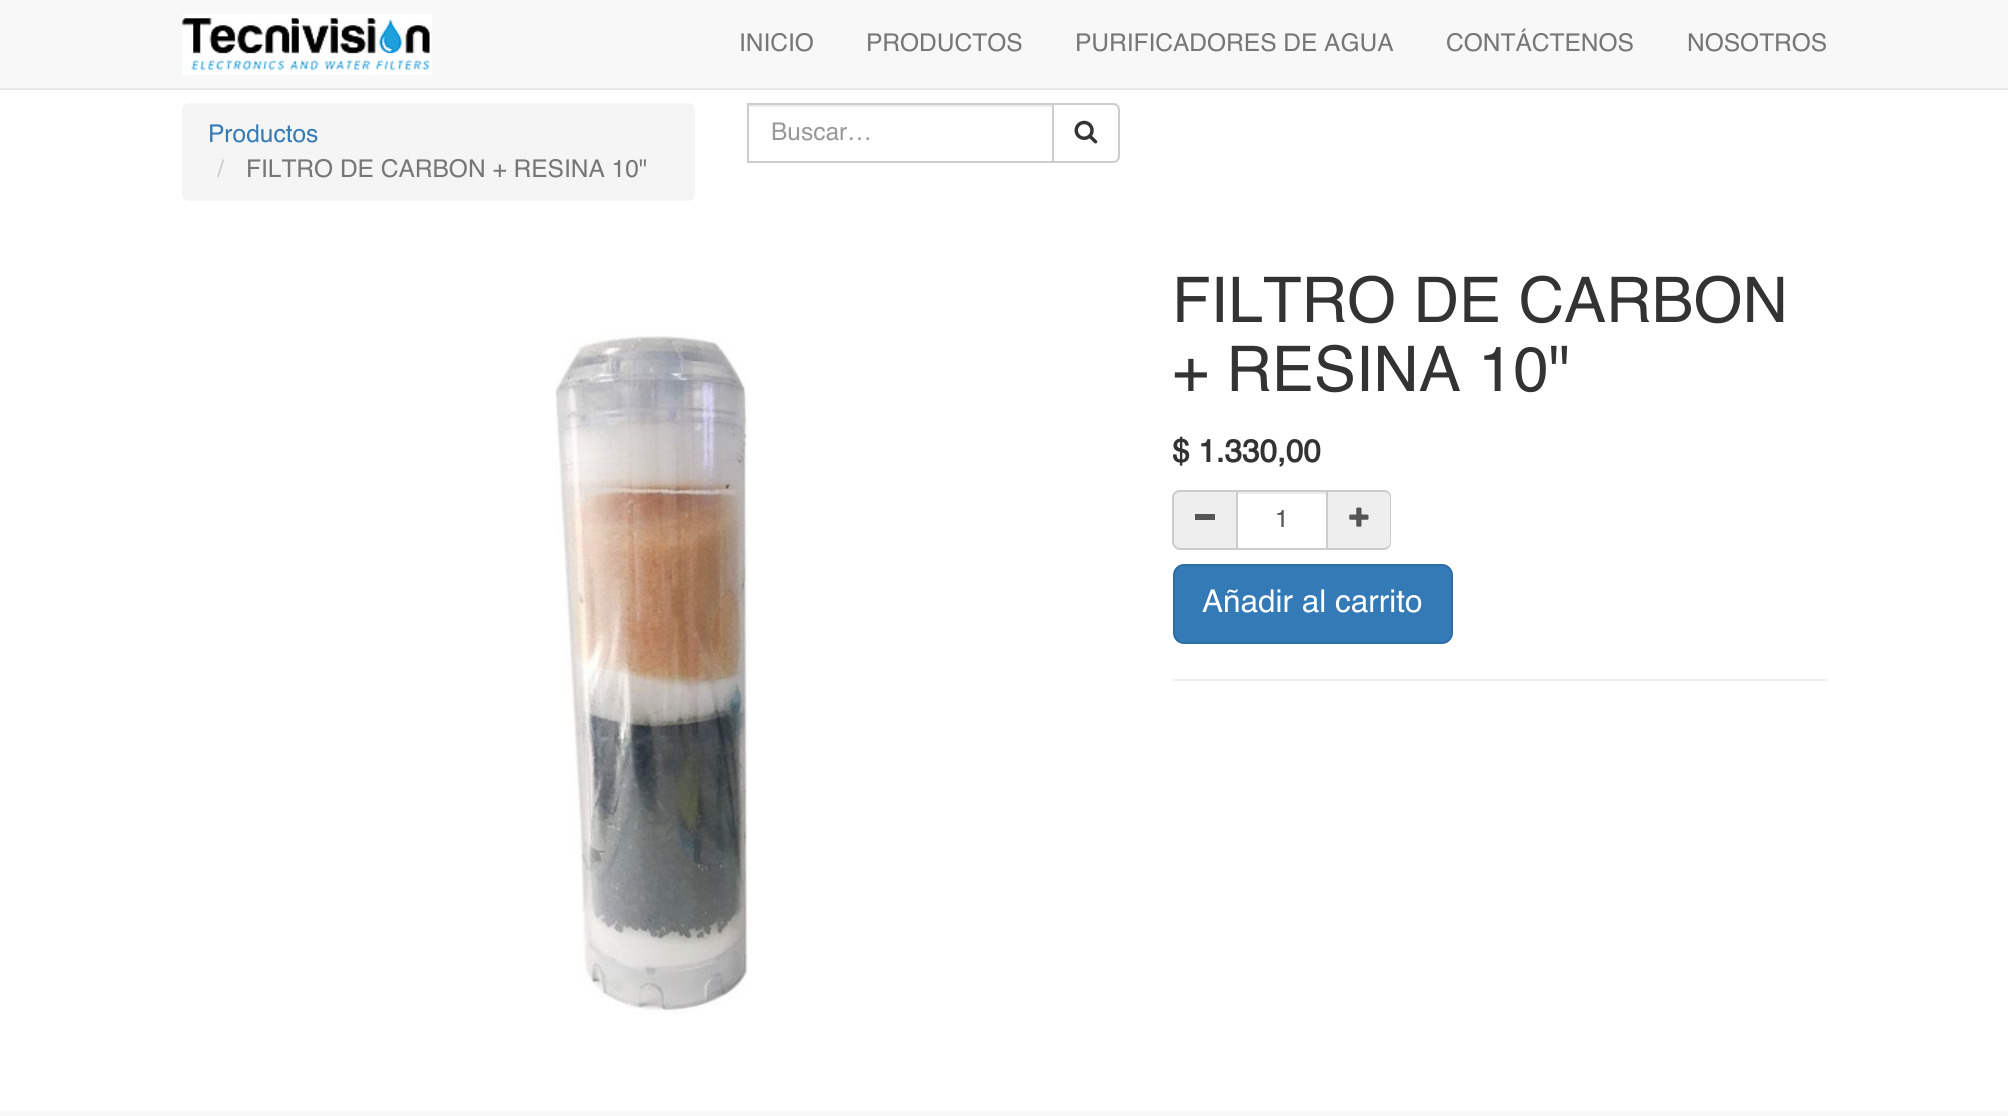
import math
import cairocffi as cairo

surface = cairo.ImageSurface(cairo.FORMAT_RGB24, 2008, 1116)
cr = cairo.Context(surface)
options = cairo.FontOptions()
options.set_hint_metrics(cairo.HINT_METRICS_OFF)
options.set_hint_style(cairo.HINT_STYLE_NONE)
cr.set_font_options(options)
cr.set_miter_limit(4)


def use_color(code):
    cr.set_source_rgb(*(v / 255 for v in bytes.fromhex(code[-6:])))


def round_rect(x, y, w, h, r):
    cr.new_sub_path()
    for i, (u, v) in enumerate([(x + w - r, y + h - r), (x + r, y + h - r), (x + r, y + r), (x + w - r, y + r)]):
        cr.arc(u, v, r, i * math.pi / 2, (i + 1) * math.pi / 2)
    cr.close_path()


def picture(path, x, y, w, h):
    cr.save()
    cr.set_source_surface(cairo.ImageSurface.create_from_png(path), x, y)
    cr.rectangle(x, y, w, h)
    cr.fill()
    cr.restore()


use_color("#ffffff")
cr.paint()
use_color("#f8f8f8")
cr.rectangle(0, 0, 2008, 88)
cr.fill()
use_color("#e7e7e7")
cr.rectangle(0, 88, 2008, 2)
cr.fill()
picture("img1.png", 182, 14, 250, 61)
cr.select_font_face("Helvetica")
cr.set_font_size(24.5)
use_color("#777777")
cr.move_to(739, 51)
cr.show_text("INICIO")
cr.move_to(866, 51)
cr.show_text("PRODUCTOS")
cr.move_to(1075, 51)
cr.show_text("PURIFICADORES DE AGUA")
cr.move_to(1446, 51)
cr.show_text("CONTÁCTENOS")
cr.move_to(1687, 51)
cr.show_text("NOSOTROS")
use_color("#f5f5f5")
round_rect(182, 103, 513, 98, 7)
cr.fill()
use_color("#337ab7")
cr.move_to(208, 142)
cr.show_text("Productos")
use_color("#cccccc")
cr.move_to(217, 177)
cr.show_text("/")
use_color("#777777")
cr.move_to(246, 177)
cr.show_text("FILTRO DE CARBON + RESINA 10\"")
use_color("#ececec")
cr.rectangle(749, 105, 303, 2)
cr.fill()
cr.rectangle(748, 104, 305, 58)
use_color("#cccccc")
cr.stroke()
use_color("#999999")
cr.move_to(771, 140)
cr.show_text("Buscar…")
use_color("#ffffff")
cr.new_path()
cr.move_to(1053, 104)
cr.line_to(1113, 104)
cr.curve_to(1116.5, 104, 1119, 106.5, 1119, 110)
cr.line_to(1119, 156)
cr.curve_to(1119, 159.5, 1116.5, 162, 1113, 162)
cr.line_to(1053, 162)
cr.close_path()
cr.fill_preserve()
use_color("#cccccc")
cr.stroke()
picture("img2.png", 1074, 120, 24, 24)
picture("img3.png", 555, 335, 193, 679)
cr.set_font_size(63)
use_color("#333333")
cr.move_to(1172, 322)
cr.show_text("FILTRO DE CARBON")
cr.move_to(1172, 391)
cr.show_text("+ RESINA 10\"")
cr.select_font_face("Helvetica", cairo.FONT_SLANT_NORMAL, cairo.FONT_WEIGHT_BOLD)
cr.set_font_size(31.5)
cr.move_to(1172, 462)
cr.show_text("$ 1.330,00")
use_color("#eeeeee")
cr.new_path()
cr.move_to(1180, 490)
cr.line_to(1236, 490)
cr.line_to(1236, 550)
cr.line_to(1180, 550)
cr.curve_to(1176, 550, 1173, 547, 1173, 543)
cr.line_to(1173, 497)
cr.curve_to(1173, 493, 1176, 490, 1180, 490)
cr.close_path()
cr.fill()
use_color("#cccccc")
cr.set_fill_rule(cairo.FILL_RULE_EVEN_ODD)
cr.new_path()
cr.move_to(1180, 490)
cr.line_to(1236, 490)
cr.line_to(1236, 550)
cr.line_to(1180, 550)
cr.curve_to(1176, 550, 1172, 546, 1172, 542)
cr.line_to(1172, 497)
cr.curve_to(1172, 493, 1176, 490, 1180, 490)
cr.close_path()
cr.move_to(1180, 492)
cr.line_to(1236, 492)
cr.line_to(1236, 548)
cr.line_to(1180, 548)
cr.curve_to(1177, 548, 1174, 545, 1174, 542)
cr.line_to(1174, 497)
cr.curve_to(1174, 494, 1177, 492, 1180, 492)
cr.close_path()
cr.fill()
use_color("#555555")
cr.rectangle(1195, 514, 20, 6)
cr.fill()
use_color("#ececec")
cr.rectangle(1237, 492, 90, 2)
cr.fill()
cr.rectangle(1237, 491, 90, 58)
use_color("#cccccc")
cr.stroke()
cr.select_font_face("Helvetica")
cr.set_font_size(24.5)
use_color("#555555")
cr.move_to(1275, 527)
cr.show_text("1")
use_color("#eeeeee")
cr.new_path()
cr.move_to(1328, 490)
cr.line_to(1384, 490)
cr.curve_to(1388, 490, 1391, 493, 1391, 497)
cr.line_to(1391, 543)
cr.curve_to(1391, 547, 1388, 550, 1384, 550)
cr.line_to(1328, 550)
cr.close_path()
cr.fill()
use_color("#cccccc")
cr.new_path()
cr.move_to(1328, 490)
cr.line_to(1384, 490)
cr.curve_to(1388, 490, 1391, 493, 1391, 497)
cr.line_to(1391, 542)
cr.curve_to(1391, 546, 1388, 550, 1384, 550)
cr.line_to(1328, 550)
cr.close_path()
cr.move_to(1328, 492)
cr.line_to(1384, 492)
cr.curve_to(1387, 492, 1390, 494, 1390, 497)
cr.line_to(1390, 542)
cr.curve_to(1390, 545, 1387, 548, 1384, 548)
cr.line_to(1328, 548)
cr.close_path()
cr.fill()
picture("img4.png", 1349, 507, 20, 20)
use_color("#337ab7")
round_rect(1174, 565, 278, 78, 10)
cr.fill_preserve()
use_color("#2e6da4")
cr.stroke()
cr.set_font_size(31.5)
use_color("#ffffff")
cr.move_to(1202, 612)
cr.show_text("Añadir al carrito")
use_color("#eeeeee")
cr.rectangle(1173, 679, 654, 2)
cr.fill()
use_color("#f8f8f8")
cr.rectangle(0, 1111, 2008, 5)
cr.fill()
surface.write_to_png("result.png")
